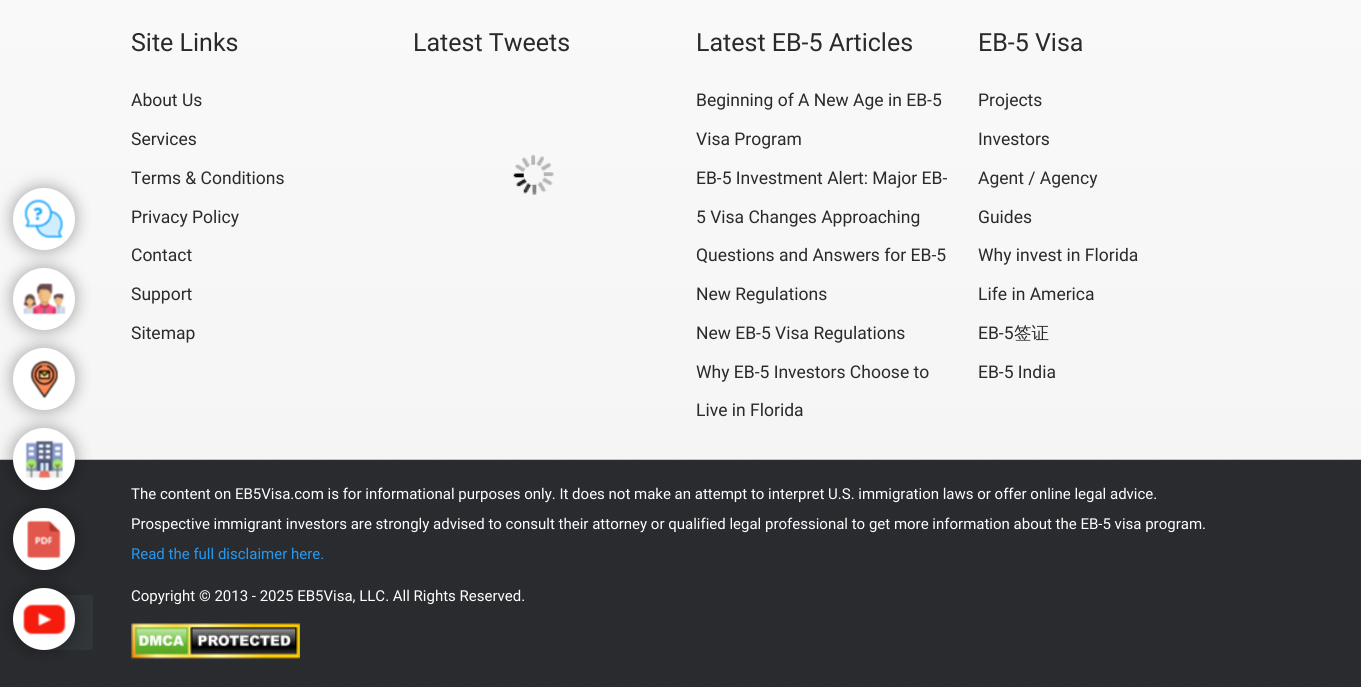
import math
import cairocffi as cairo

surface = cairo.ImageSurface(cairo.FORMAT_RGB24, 1361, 687)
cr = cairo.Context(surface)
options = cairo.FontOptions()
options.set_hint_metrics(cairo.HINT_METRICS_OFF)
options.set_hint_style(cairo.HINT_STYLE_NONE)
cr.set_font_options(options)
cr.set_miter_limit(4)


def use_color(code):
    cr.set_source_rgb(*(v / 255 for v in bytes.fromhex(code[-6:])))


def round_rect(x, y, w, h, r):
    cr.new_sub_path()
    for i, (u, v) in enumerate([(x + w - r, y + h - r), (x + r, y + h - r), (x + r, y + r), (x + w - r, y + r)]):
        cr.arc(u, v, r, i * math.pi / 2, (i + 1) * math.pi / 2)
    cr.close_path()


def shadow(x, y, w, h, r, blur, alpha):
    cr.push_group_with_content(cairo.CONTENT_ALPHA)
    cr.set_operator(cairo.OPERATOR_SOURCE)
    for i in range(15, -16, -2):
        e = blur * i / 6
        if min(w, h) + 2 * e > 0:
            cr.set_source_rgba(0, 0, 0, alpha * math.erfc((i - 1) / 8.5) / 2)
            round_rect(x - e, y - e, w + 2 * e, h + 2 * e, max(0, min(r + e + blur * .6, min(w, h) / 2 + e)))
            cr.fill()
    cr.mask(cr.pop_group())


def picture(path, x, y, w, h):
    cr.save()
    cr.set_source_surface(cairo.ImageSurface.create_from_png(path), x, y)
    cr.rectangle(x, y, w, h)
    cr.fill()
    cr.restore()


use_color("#ffffff")
cr.paint()
gradient = cairo.LinearGradient(681, -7.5, 681, 460)
gradient.add_color_stop_rgba(0.02, 0.976, 0.976, 0.976, 1)
gradient.add_color_stop_rgba(1, 0.961, 0.961, 0.961, 1)
cr.set_source(gradient)
cr.rectangle(0, 0, 1361, 460)
cr.fill()
use_color("#000000")
shadow(10, 185, 68, 68, 34, 7, 0.25)
use_color("#ffffff")
cr.arc(44, 219, 31, 0, 2 * math.pi)
cr.fill()
picture("img1.png", 24, 199, 40, 40)
use_color("#000000")
shadow(10, 265, 68, 68, 34, 7, 0.25)
use_color("#ffffff")
cr.arc(44, 299, 31, 0, 2 * math.pi)
cr.fill()
picture("img2.png", 23, 283, 43, 32)
use_color("#000000")
shadow(10, 345, 68, 68, 34, 7, 0.25)
use_color("#ffffff")
cr.arc(44, 379, 31, 0, 2 * math.pi)
cr.fill()
picture("img3.png", 30, 360, 29, 39)
picture("img8.png", 0, 459, 1361, 228)
use_color("#000000")
shadow(10, 425, 68, 68, 34, 7, 0.25)
use_color("#ffffff")
cr.arc(44, 459, 31, 0, 2 * math.pi)
cr.fill()
picture("img4.png", 25, 440, 39, 39)
use_color("#000000")
shadow(10, 505, 68, 68, 34, 7, 0.25)
use_color("#ffffff")
cr.arc(44, 539, 31, 0, 2 * math.pi)
cr.fill()
picture("img5.png", 26, 520, 35, 39)
cr.set_source_rgba(0.204, 0.22, 0.231, 0.8)
round_rect(38, 595, 55, 55, 2.5)
cr.fill()
use_color("#000000")
shadow(10, 585, 68, 68, 34, 7, 0.25)
use_color("#ffffff")
cr.arc(44, 619, 31, 0, 2 * math.pi)
cr.fill()
picture("img6.png", 23, 604, 43, 31)
cr.select_font_face("Roboto")
cr.set_font_size(25)
use_color("#2a2a2a")
cr.move_to(131, 51)
cr.show_text("Site Links")
cr.set_font_size(17.5)
cr.move_to(131, 106)
cr.show_text("About Us")
cr.move_to(131, 145)
cr.show_text("Services")
cr.move_to(131, 184)
cr.show_text("Terms & Conditions")
cr.move_to(131, 223)
cr.show_text("Privacy Policy")
cr.move_to(131, 261)
cr.show_text("Contact")
cr.move_to(131, 300)
cr.show_text("Support")
cr.move_to(131, 339)
cr.show_text("Sitemap")
cr.set_font_size(25)
cr.move_to(413, 51)
cr.show_text("Latest Tweets")
picture("img7.png", 513, 154, 41, 41)
cr.move_to(696, 51)
cr.show_text("Latest EB-5 Articles")
cr.set_font_size(17.5)
cr.move_to(696, 106)
cr.show_text("Beginning of A New Age in EB-5")
cr.move_to(696, 145)
cr.show_text("Visa Program")
cr.move_to(696, 184)
cr.show_text("EB-5 Investment Alert: Major EB-")
cr.move_to(696, 223)
cr.show_text("5 Visa Changes Approaching")
cr.move_to(696, 261)
cr.show_text("Questions and Answers for EB-5")
cr.move_to(696, 300)
cr.show_text("New Regulations")
cr.move_to(696, 339)
cr.show_text("New EB-5 Visa Regulations")
cr.move_to(696, 378)
cr.show_text("Why EB-5 Investors Choose to")
cr.move_to(696, 416)
cr.show_text("Live in Florida")
cr.set_font_size(25)
cr.move_to(978, 51)
cr.show_text("EB-5 Visa")
cr.set_font_size(17.5)
cr.move_to(978, 106)
cr.show_text("Projects")
cr.move_to(978, 145)
cr.show_text("Investors")
cr.move_to(978, 184)
cr.show_text("Agent / Agency")
cr.move_to(978, 223)
cr.show_text("Guides")
cr.move_to(978, 261)
cr.show_text("Why invest in Florida")
cr.move_to(978, 300)
cr.show_text("Life in America")
cr.move_to(978, 339)
cr.show_text("EB-5")
cr.select_font_face("WenQuanYi Zen Hei Medium")
cr.move_to(1014, 339)
cr.show_text("签证")
cr.select_font_face("Roboto")
cr.move_to(978, 378)
cr.show_text("EB-5 India")
cr.set_font_size(15)
use_color("#ffffff")
cr.move_to(131, 499)
cr.show_text("The content on EB5Visa.com is for informational purposes only. It does not make an attempt to interpret U.S. immigration laws or offer online legal advice.")
cr.move_to(131, 529)
cr.show_text("Prospective immigrant investors are strongly advised to consult their attorney or qualified legal professional to get more information about the EB-5 visa program.")
use_color("#2798f0")
cr.move_to(131, 559)
cr.show_text("Read the full disclaimer here.")
use_color("#ffffff")
cr.move_to(131, 601)
cr.show_text("Copyright © 2013 - 2025 EB5Visa, LLC. All Rights Reserved.")
picture("img9.png", 131, 623, 169, 36)
surface.write_to_png("result.png")
